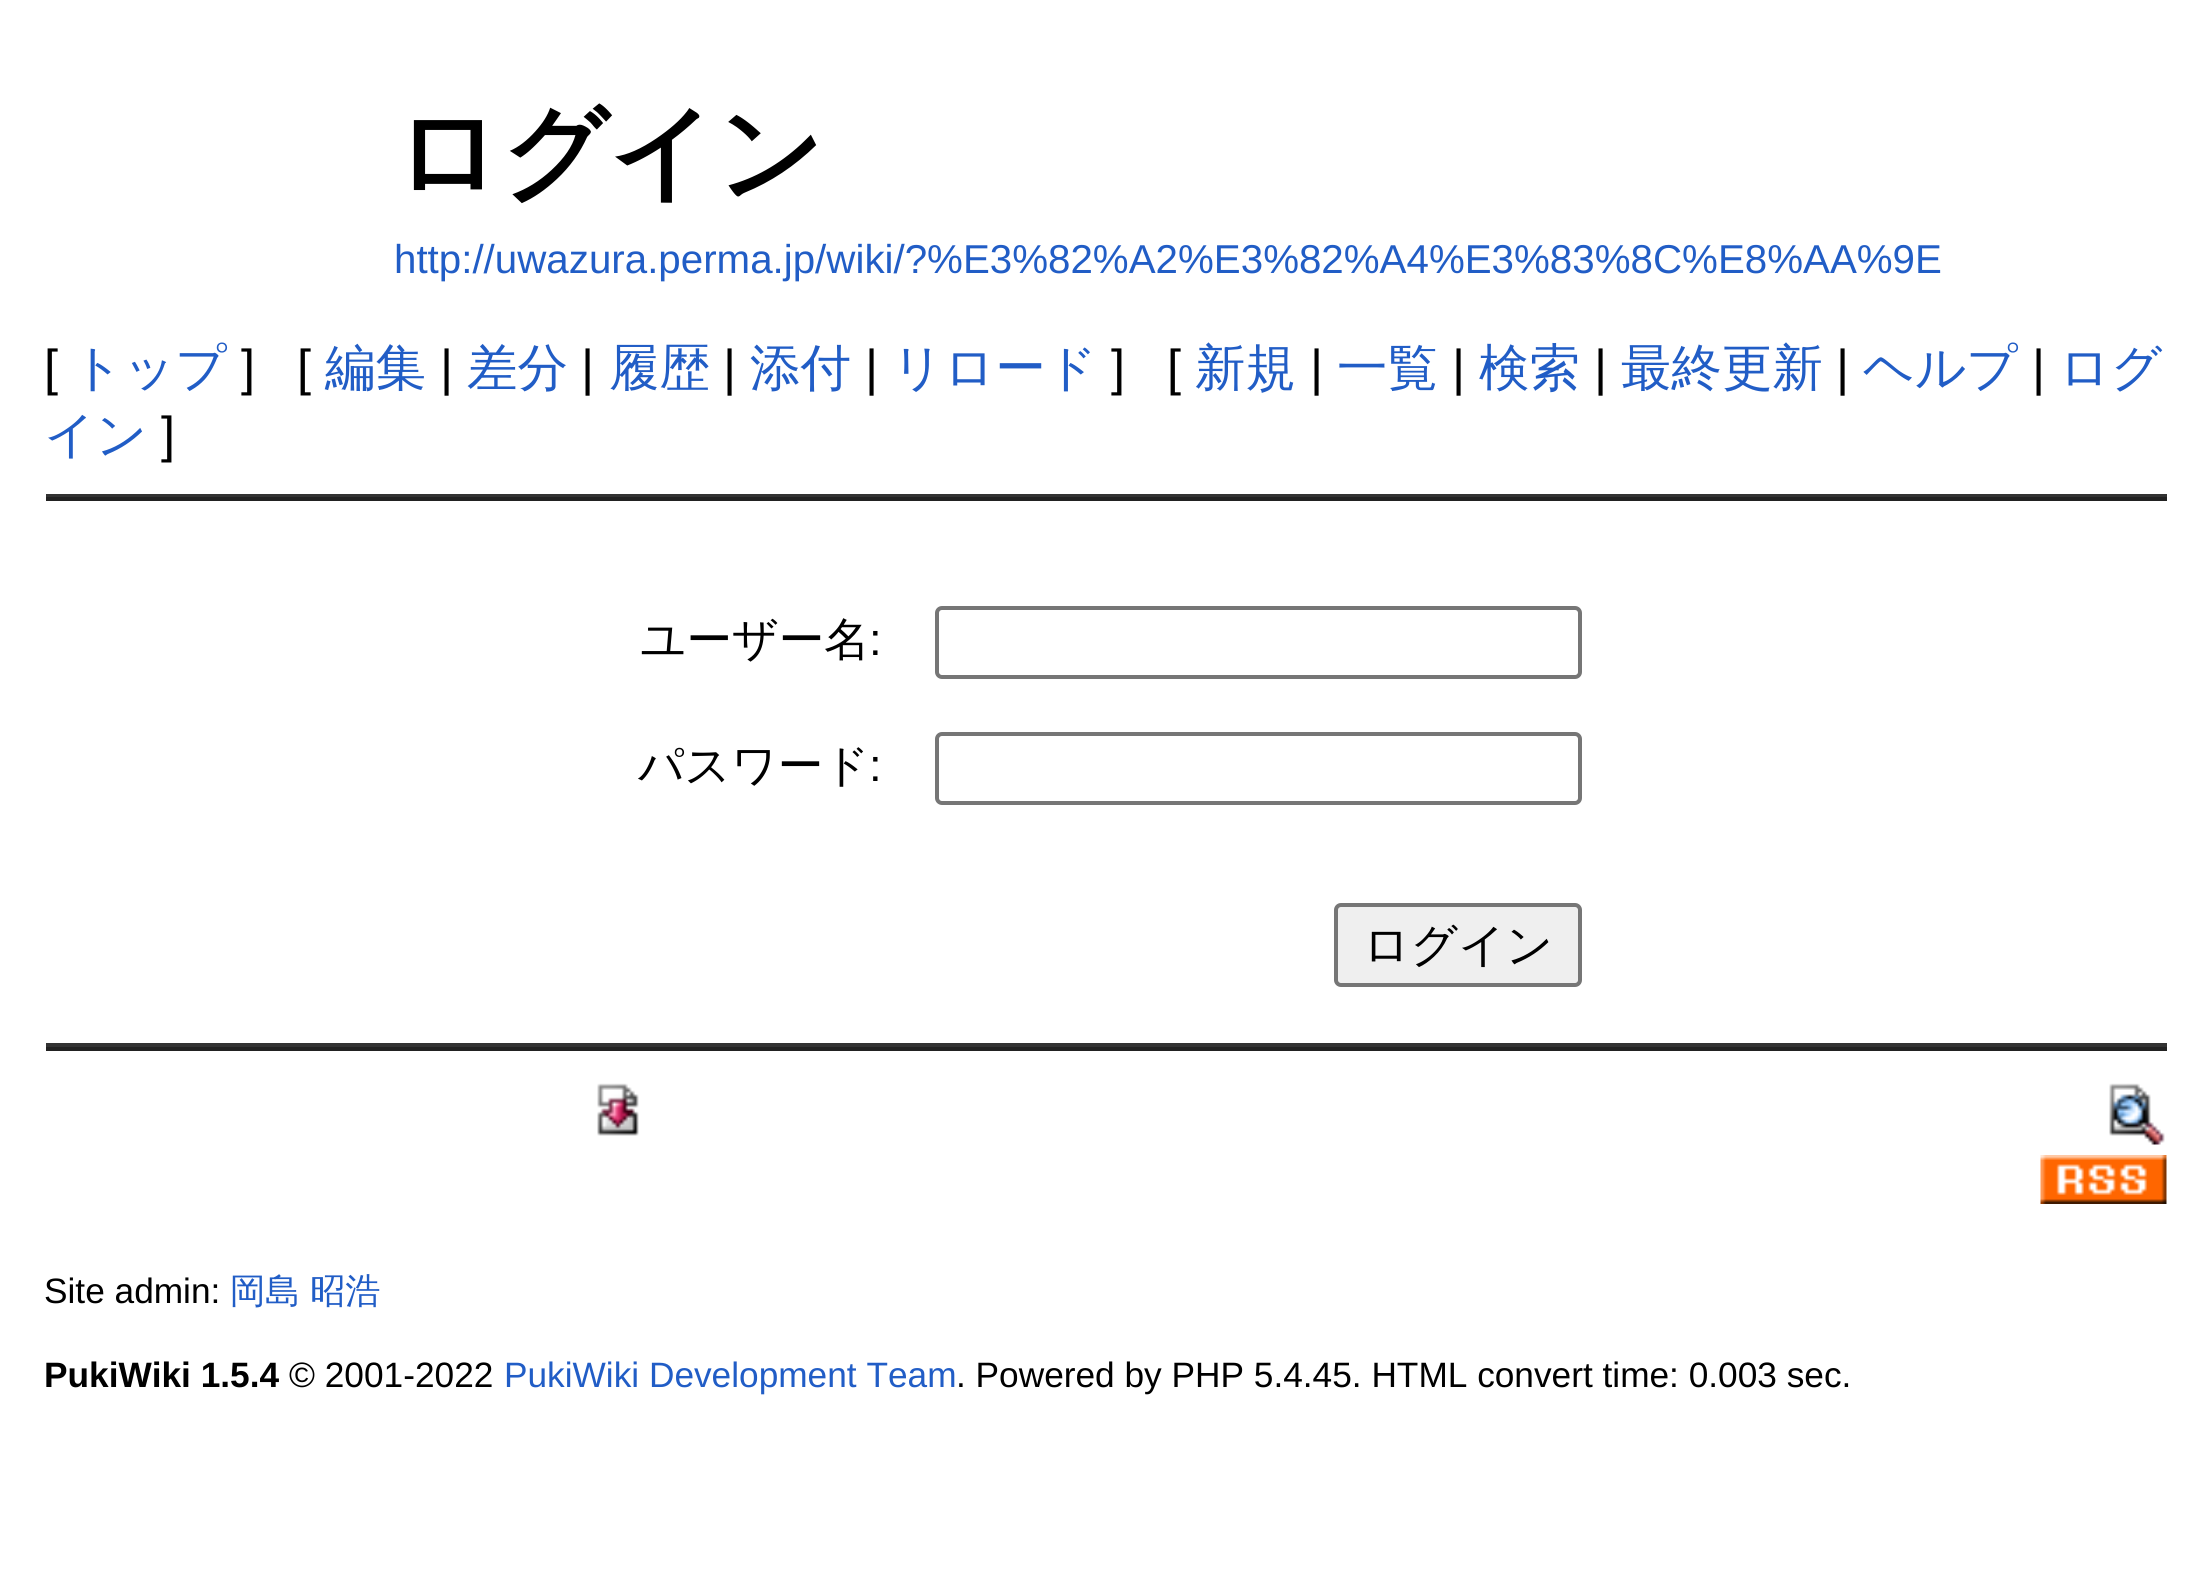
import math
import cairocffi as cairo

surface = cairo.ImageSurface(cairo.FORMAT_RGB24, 2210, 1584)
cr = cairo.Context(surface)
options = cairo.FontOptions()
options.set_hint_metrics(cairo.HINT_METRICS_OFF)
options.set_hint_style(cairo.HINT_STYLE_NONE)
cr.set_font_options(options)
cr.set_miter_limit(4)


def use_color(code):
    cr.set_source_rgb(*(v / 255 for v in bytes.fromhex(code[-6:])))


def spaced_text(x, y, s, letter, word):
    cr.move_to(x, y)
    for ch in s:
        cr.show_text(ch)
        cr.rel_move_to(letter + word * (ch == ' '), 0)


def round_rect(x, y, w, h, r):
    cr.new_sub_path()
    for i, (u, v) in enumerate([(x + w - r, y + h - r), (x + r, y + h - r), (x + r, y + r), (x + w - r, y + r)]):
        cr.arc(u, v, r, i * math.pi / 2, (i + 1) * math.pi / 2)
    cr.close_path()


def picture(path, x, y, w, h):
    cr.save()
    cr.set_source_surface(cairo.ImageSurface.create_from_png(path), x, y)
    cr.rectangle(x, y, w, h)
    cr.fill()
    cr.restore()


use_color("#ffffff")
cr.paint()
cr.select_font_face("WenQuanYi Zen Hei", cairo.FONT_SLANT_NORMAL, cairo.FONT_WEIGHT_BOLD)
cr.set_font_size(105)
use_color("#000000")
cr.move_to(394, 189)
cr.show_text("ログイン")
cr.select_font_face("Liberation Sans")
cr.set_font_size(40.3)
use_color("#215dc6")
cr.move_to(394, 273)
cr.show_text("http://uwazura.perma.jp/wiki/?%E3%82%A2%E3%82%A4%E3%83%8C%E8%AA%9E")
cr.set_font_size(50.5)
use_color("#000000")
cr.move_to(44, 385)
cr.show_text("[")
cr.select_font_face("WenQuanYi Zen Hei Medium")
use_color("#215dc6")
cr.move_to(72, 385)
cr.show_text("トップ")
cr.select_font_face("Liberation Sans")
use_color("#000000")
cr.move_to(241, 385)
cr.show_text("]")
cr.move_to(297, 385)
cr.show_text("[")
cr.select_font_face("WenQuanYi Zen Hei Medium")
use_color("#215dc6")
cr.move_to(325, 385)
cr.show_text("編集")
cr.select_font_face("Liberation Sans")
use_color("#000000")
cr.move_to(440, 385)
cr.show_text("|")
cr.select_font_face("WenQuanYi Zen Hei Medium")
use_color("#215dc6")
cr.move_to(467, 385)
cr.show_text("差分")
cr.select_font_face("Liberation Sans")
use_color("#000000")
cr.move_to(581, 385)
cr.show_text("|")
cr.select_font_face("WenQuanYi Zen Hei Medium")
use_color("#215dc6")
cr.move_to(609, 385)
cr.show_text("履歴")
cr.select_font_face("Liberation Sans")
use_color("#000000")
cr.move_to(723, 385)
cr.show_text("|")
cr.select_font_face("WenQuanYi Zen Hei Medium")
use_color("#215dc6")
cr.move_to(750, 385)
cr.show_text("添付")
cr.select_font_face("Liberation Sans")
use_color("#000000")
cr.move_to(865, 385)
cr.show_text("|")
cr.select_font_face("WenQuanYi Zen Hei Medium")
use_color("#215dc6")
cr.move_to(892, 385)
cr.show_text("リロード")
cr.select_font_face("Liberation Sans")
use_color("#000000")
cr.move_to(1111, 385)
cr.show_text("]")
cr.move_to(1167, 385)
cr.show_text("[")
cr.select_font_face("WenQuanYi Zen Hei Medium")
use_color("#215dc6")
cr.move_to(1195, 385)
cr.show_text("新規")
cr.select_font_face("Liberation Sans")
use_color("#000000")
cr.move_to(1310, 385)
cr.show_text("|")
cr.select_font_face("WenQuanYi Zen Hei Medium")
use_color("#215dc6")
cr.move_to(1337, 385)
cr.show_text("一覧")
cr.select_font_face("Liberation Sans")
use_color("#000000")
cr.move_to(1452, 385)
cr.show_text("|")
cr.select_font_face("WenQuanYi Zen Hei Medium")
use_color("#215dc6")
cr.move_to(1479, 385)
cr.show_text("検索")
cr.select_font_face("Liberation Sans")
use_color("#000000")
cr.move_to(1594, 385)
cr.show_text("|")
cr.select_font_face("WenQuanYi Zen Hei Medium")
use_color("#215dc6")
cr.move_to(1621, 385)
cr.show_text("最終更新")
cr.select_font_face("Liberation Sans")
use_color("#000000")
cr.move_to(1836, 385)
cr.show_text("|")
cr.select_font_face("WenQuanYi Zen Hei Medium")
use_color("#215dc6")
cr.move_to(1863, 385)
cr.show_text("ヘルプ")
cr.select_font_face("Liberation Sans")
use_color("#000000")
cr.move_to(2032, 385)
cr.show_text("|")
cr.select_font_face("WenQuanYi Zen Hei Medium")
use_color("#215dc6")
cr.move_to(2059, 385)
cr.show_text("ログ")
cr.move_to(44, 452)
cr.show_text("イン")
cr.select_font_face("Liberation Sans")
use_color("#000000")
cr.move_to(161, 452)
cr.show_text("]")
use_color("#333333")
cr.rectangle(46, 494, 2121, 3)
cr.fill()
use_color("#222222")
cr.rectangle(46, 497, 2121, 4)
cr.fill()
cr.select_font_face("WenQuanYi Zen Hei Medium")
cr.set_font_size(45.5)
use_color("#000000")
cr.move_to(640, 655)
cr.show_text("ユーザー名")
cr.select_font_face("Liberation Sans")
cr.move_to(869, 655)
cr.show_text(":")
round_rect(937, 608, 643, 69, 5)
use_color("#767676")
cr.set_line_width(4)
cr.stroke()
cr.select_font_face("WenQuanYi Zen Hei Medium")
use_color("#000000")
cr.move_to(638, 781)
cr.show_text("パスワード")
cr.select_font_face("Liberation Sans")
cr.move_to(869, 781)
cr.show_text(":")
round_rect(937, 734, 643, 69, 5)
use_color("#767676")
cr.stroke()
use_color("#efefef")
round_rect(1336, 905, 244, 80, 5)
cr.fill_preserve()
use_color("#767676")
cr.stroke()
cr.select_font_face("WenQuanYi Zen Hei Medium")
cr.set_font_size(46.5)
use_color("#000000")
cr.move_to(1363, 961)
cr.show_text("ログイン")
use_color("#333333")
cr.rectangle(46, 1043, 2121, 4)
cr.fill()
use_color("#222222")
cr.rectangle(46, 1047, 2121, 4)
cr.fill()
picture("img1.png", 597, 1083, 42, 53)
picture("img2.png", 2109, 1083, 56, 62)
picture("img3.png", 2040, 1155, 127, 49)
cr.select_font_face("Liberation Sans")
cr.set_font_size(35.25)
use_color("#000000")
cr.move_to(44, 1303)
cr.show_text("Site admin:")
cr.select_font_face("WenQuanYi Zen Hei Medium")
use_color("#215dc6")
spaced_text(230, 1303, "岡島 昭浩", 0, -1)
cr.select_font_face("Liberation Sans", cairo.FONT_SLANT_NORMAL, cairo.FONT_WEIGHT_BOLD)
use_color("#000000")
cr.move_to(44, 1387)
cr.show_text("PukiWiki 1.5.4")
cr.select_font_face("Liberation Sans")
cr.move_to(289, 1387)
cr.show_text("© 2001-2022")
use_color("#215dc6")
cr.move_to(504, 1387)
cr.show_text("PukiWiki Development Team")
use_color("#000000")
cr.move_to(956, 1387)
cr.show_text(". Powered by PHP 5.4.45. HTML convert time: 0.003 sec.")
surface.write_to_png("result.png")
